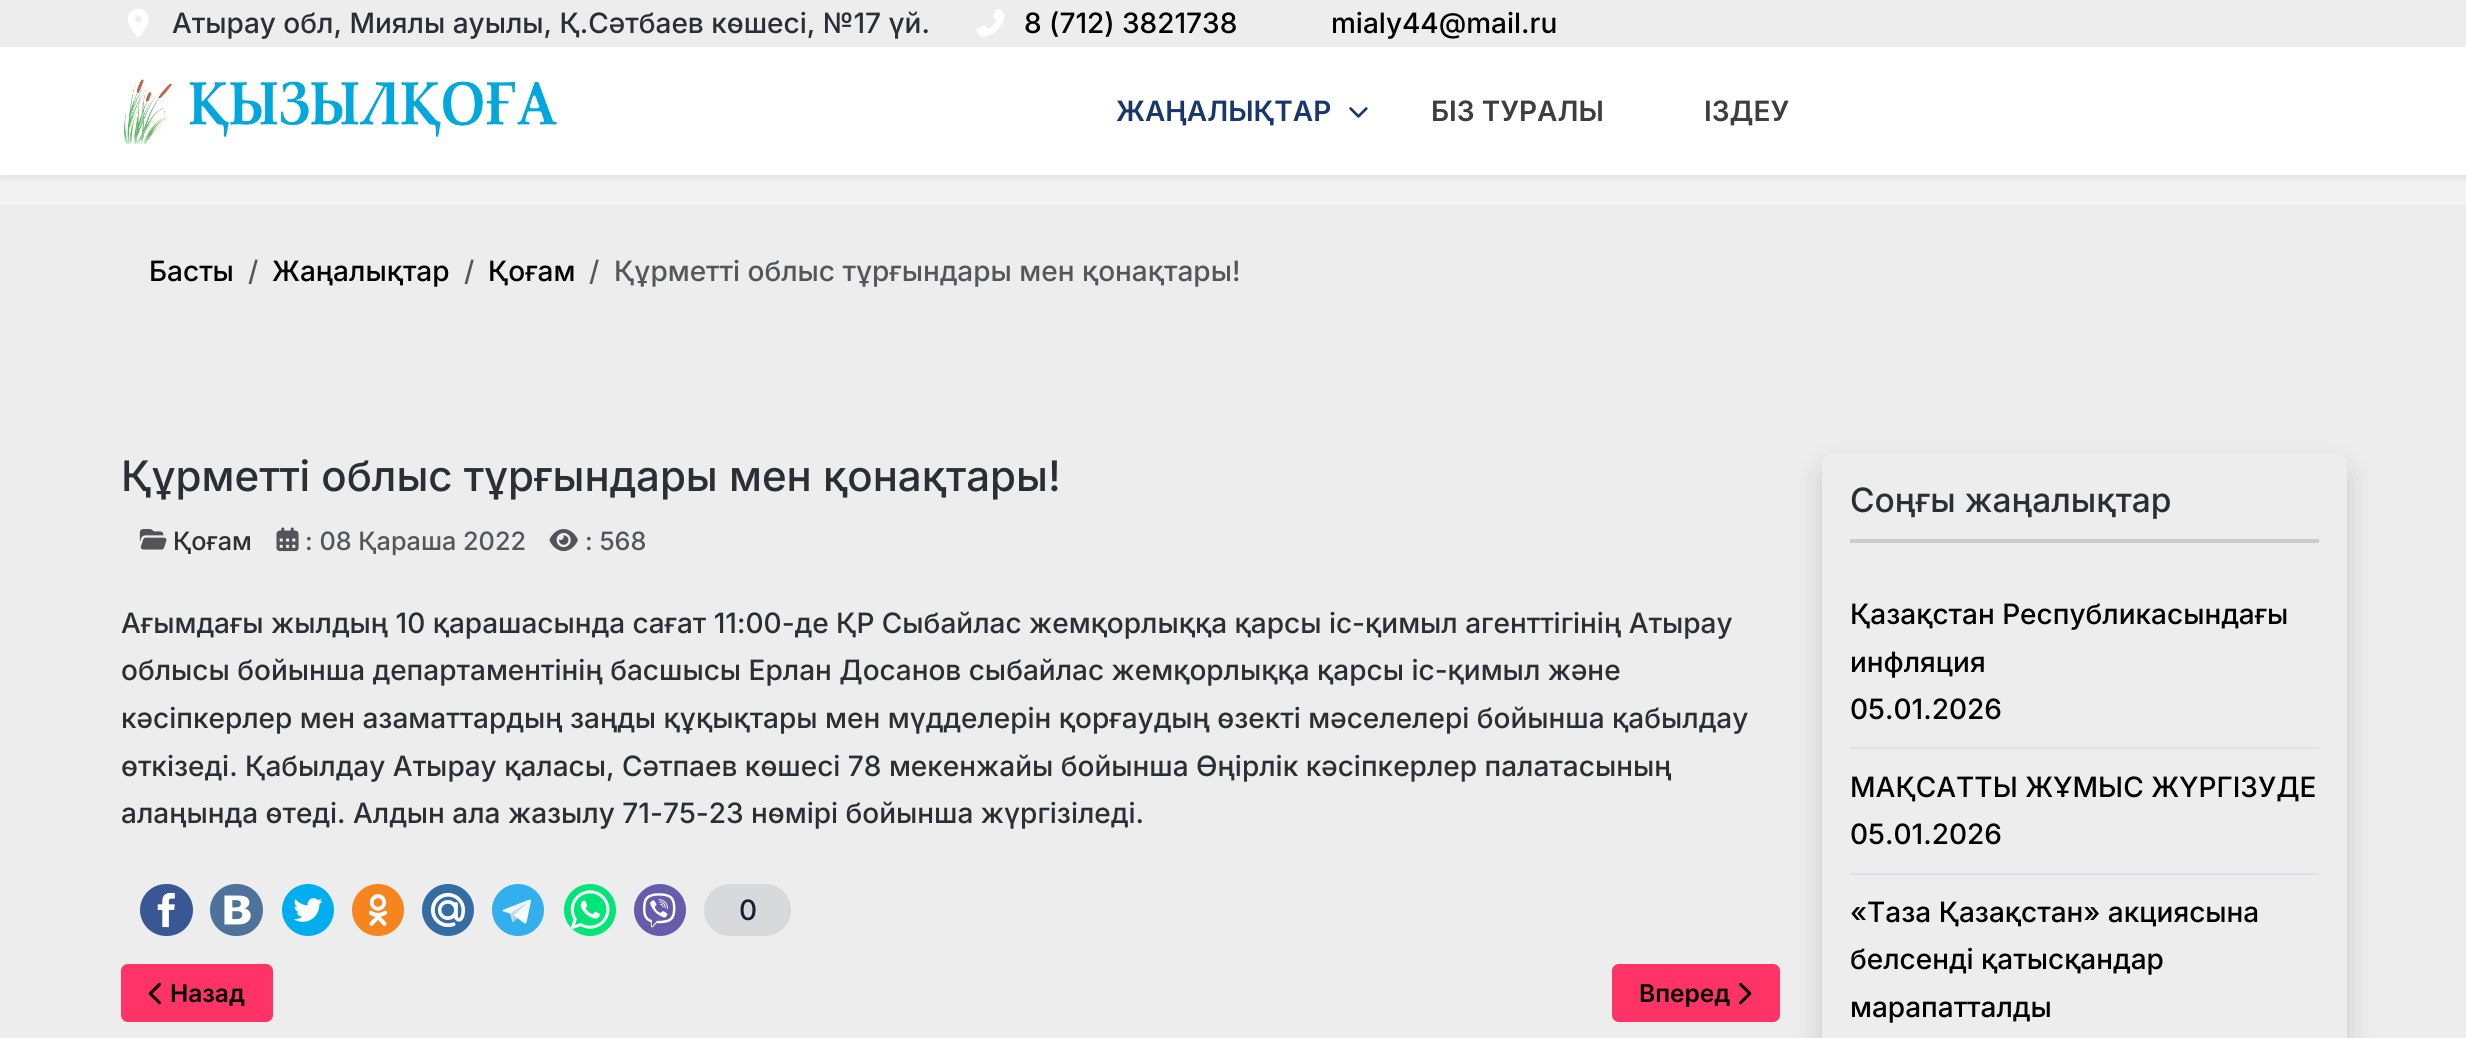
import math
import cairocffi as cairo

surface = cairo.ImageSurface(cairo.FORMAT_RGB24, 2466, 1038)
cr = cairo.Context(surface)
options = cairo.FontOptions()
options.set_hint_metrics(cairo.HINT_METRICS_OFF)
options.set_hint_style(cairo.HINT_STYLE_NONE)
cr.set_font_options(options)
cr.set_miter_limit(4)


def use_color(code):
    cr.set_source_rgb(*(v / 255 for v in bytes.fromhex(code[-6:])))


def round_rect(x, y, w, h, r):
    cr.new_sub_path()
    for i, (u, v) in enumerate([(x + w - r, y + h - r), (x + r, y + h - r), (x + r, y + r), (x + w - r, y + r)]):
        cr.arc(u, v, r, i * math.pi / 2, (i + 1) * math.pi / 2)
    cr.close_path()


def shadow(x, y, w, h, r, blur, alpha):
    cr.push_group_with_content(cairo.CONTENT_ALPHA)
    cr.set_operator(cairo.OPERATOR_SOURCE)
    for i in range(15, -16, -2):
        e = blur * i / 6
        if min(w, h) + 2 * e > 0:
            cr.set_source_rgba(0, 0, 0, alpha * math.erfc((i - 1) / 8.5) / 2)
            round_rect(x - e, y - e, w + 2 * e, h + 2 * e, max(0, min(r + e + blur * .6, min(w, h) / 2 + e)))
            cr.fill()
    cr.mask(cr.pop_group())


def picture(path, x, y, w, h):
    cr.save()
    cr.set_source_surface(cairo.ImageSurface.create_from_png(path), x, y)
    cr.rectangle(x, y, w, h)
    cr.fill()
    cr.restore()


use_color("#ededed")
cr.paint()
picture("img1.png", 128, 8, 21, 29)
cr.select_font_face("Inter Medium")
cr.set_font_size(28)
use_color("#2c2e36")
cr.move_to(172, 33)
cr.show_text("Атырау обл, Миялы ауылы, Қ.Сәтбаев көшесі, №17 үй.")
picture("img2.png", 976, 9, 29, 28)
use_color("#000000")
cr.move_to(1024, 33)
cr.show_text("8 (712) 3821738")
cr.move_to(1331, 33)
cr.show_text("mialy44@mail.ru")
use_color("#f3f3f3")
cr.rectangle(0, 175, 2466, 30)
cr.fill()
use_color("#000000")
shadow(0, 51, 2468, 128, 0, 3.5, 0.07)
use_color("#ffffff")
cr.rectangle(0, 47, 2466, 128)
cr.fill()
picture("img3.png", 124, 79, 433, 66)
cr.select_font_face("Inter SemiBold")
use_color("#18376b")
cr.move_to(1116, 121)
cr.show_text("ЖАҢАЛЫҚТАР")
picture("img4.png", 1349, 107, 19, 11)
use_color("#3e3e3e")
cr.move_to(1431, 121)
cr.show_text("БІЗ ТУРАЛЫ")
cr.move_to(1704, 121)
cr.show_text("ІЗДЕУ")
cr.select_font_face("Inter Medium")
use_color("#000000")
cr.move_to(149, 281)
cr.show_text("Басты")
use_color("#54575a")
cr.move_to(248, 281)
cr.show_text("/")
use_color("#000000")
cr.move_to(272, 281)
cr.show_text("Жаңалықтар")
use_color("#54575a")
cr.move_to(464, 281)
cr.show_text("/")
use_color("#000000")
cr.move_to(488, 281)
cr.show_text("Қоғам")
use_color("#54575a")
cr.move_to(589, 281)
cr.show_text("/")
cr.move_to(614, 281)
cr.show_text("Құрметті облыс тұрғындары мен қонақтары!")
cr.set_font_size(42)
use_color("#2c2e36")
cr.move_to(121, 491)
cr.show_text("Құрметті облыс тұрғындары мен қонақтары!")
picture("img5.png", 139, 529, 28, 21)
cr.set_font_size(25.25)
use_color("#2f2f2f")
cr.move_to(173, 550)
cr.show_text("Қоғам")
picture("img6.png", 276, 527, 23, 25)
use_color("#54575a")
cr.move_to(305, 550)
cr.show_text(": 08 Қараша 2022")
picture("img7.png", 549, 529, 29, 23)
cr.move_to(585, 550)
cr.show_text(": 568")
cr.set_font_size(28)
use_color("#2c2e36")
cr.move_to(121, 633)
cr.show_text("Ағымдағы жылдың 10 қарашасында сағат 11:00-де ҚР Сыбайлас жемқорлыққа қарсы іс-қимыл агенттігінің Атырау")
cr.move_to(121, 680)
cr.show_text("облысы бойынша департаментінің басшысы Ерлан Досанов сыбайлас жемқорлыққа қарсы іс-қимыл және")
cr.move_to(121, 728)
cr.show_text("кәсіпкерлер мен азаматтардың заңды құқықтары мен мүдделерін қорғаудың өзекті мәселелері бойынша қабылдау")
cr.move_to(121, 776)
cr.show_text("өткізеді. Қабылдау Атырау қаласы, Сәтпаев көшесі 78 мекенжайы бойынша Өңірлік кәсіпкерлер палатасының")
cr.move_to(121, 823)
cr.show_text("алаңында өтеді. Алдын ала жазылу 71-75-23 нөмірі бойынша жүргізіледі.")
use_color("#3a5795")
round_rect(140, 884, 53, 52, 26)
cr.fill()
picture("img8.png", 157, 892, 18, 36)
use_color("#4e7299")
round_rect(210, 884, 53, 52, 26)
cr.fill()
picture("img9.png", 224, 895, 27, 30)
use_color("#00aeef")
cr.arc(308, 910, 26, 0, 2 * math.pi)
cr.fill()
picture("img10.png", 293, 898, 30, 24)
use_color("#f6851f")
cr.arc(378, 910, 26, 0, 2 * math.pi)
cr.fill()
picture("img11.png", 368, 894, 20, 32)
use_color("#356ca4")
cr.arc(448, 910, 26, 0, 2 * math.pi)
cr.fill()
picture("img12.png", 430, 892, 36, 36)
use_color("#32afed")
cr.arc(518, 910, 26, 0, 2 * math.pi)
cr.fill()
picture("img13.png", 502, 899, 29, 25)
use_color("#00e676")
cr.arc(590, 910, 26, 0, 2 * math.pi)
cr.fill()
picture("img14.png", 570, 890, 40, 39)
use_color("#665cac")
cr.arc(660, 910, 26, 0, 2 * math.pi)
cr.fill()
picture("img15.png", 643, 893, 33, 35)
use_color("#d7d9da")
round_rect(704, 884, 87, 52, 26)
cr.fill()
use_color("#122334")
cr.move_to(739, 920)
cr.show_text("0")
use_color("#ff3366")
round_rect(122, 965, 150, 56, 6)
cr.fill_preserve()
cr.stroke()
picture("img16.png", 148, 982, 13, 23)
cr.select_font_face("Inter SemiBold")
cr.set_font_size(24.5)
use_color("#000000")
cr.move_to(170, 1002)
cr.show_text("Назад")
use_color("#ff3366")
round_rect(1613, 965, 166, 56, 6)
cr.fill_preserve()
cr.stroke()
use_color("#000000")
cr.move_to(1639, 1002)
cr.show_text("Вперед")
picture("img17.png", 1739, 982, 13, 23)
use_color("#000000")
shadow(1822, 467, 525, 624, 11, 14, 0.15)
use_color("#ededed")
round_rect(1822, 453, 525, 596, 11)
cr.fill()
use_color("#cccccc")
cr.rectangle(1850, 539, 469, 4)
cr.fill()
cr.select_font_face("Inter Medium")
cr.set_font_size(33.5)
use_color("#2c2e36")
cr.move_to(1850, 512)
cr.show_text("Соңғы жаңалықтар")
use_color("#dee2e6")
cr.rectangle(1850, 747, 469, 2)
cr.fill()
cr.set_font_size(28)
use_color("#000000")
cr.move_to(1850, 624)
cr.show_text("Қазақстан Республикасындағы")
cr.move_to(1850, 672)
cr.show_text("инфляция")
cr.move_to(1850, 719)
cr.show_text("05.01.2026")
use_color("#dee2e6")
cr.rectangle(1850, 873, 469, 2)
cr.fill()
use_color("#000000")
cr.move_to(1850, 797)
cr.show_text("МАҚСАТТЫ ЖҰМЫС ЖҮРГІЗУДЕ")
cr.move_to(1850, 844)
cr.show_text("05.01.2026")
cr.move_to(1850, 922)
cr.show_text("«Таза Қазақстан» акциясына")
cr.move_to(1850, 969)
cr.show_text("белсенді қатысқандар")
cr.move_to(1850, 1017)
cr.show_text("марапатталды")
surface.write_to_png("result.png")
